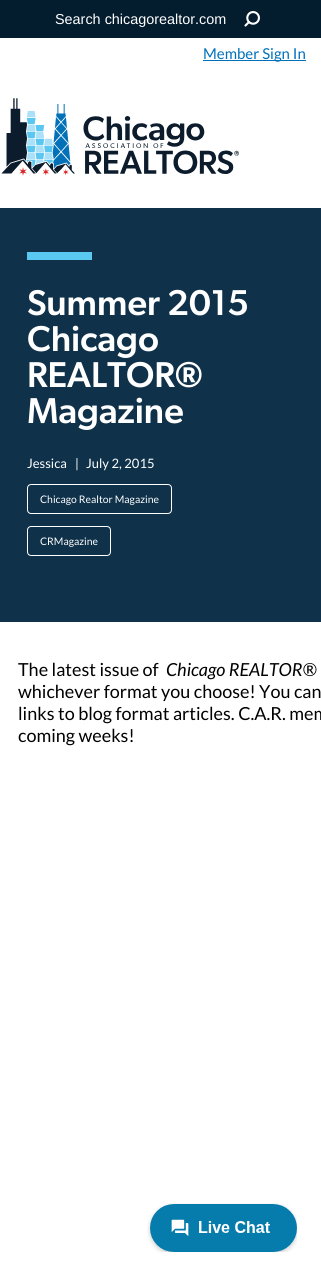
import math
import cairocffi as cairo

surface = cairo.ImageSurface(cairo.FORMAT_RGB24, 321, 1276)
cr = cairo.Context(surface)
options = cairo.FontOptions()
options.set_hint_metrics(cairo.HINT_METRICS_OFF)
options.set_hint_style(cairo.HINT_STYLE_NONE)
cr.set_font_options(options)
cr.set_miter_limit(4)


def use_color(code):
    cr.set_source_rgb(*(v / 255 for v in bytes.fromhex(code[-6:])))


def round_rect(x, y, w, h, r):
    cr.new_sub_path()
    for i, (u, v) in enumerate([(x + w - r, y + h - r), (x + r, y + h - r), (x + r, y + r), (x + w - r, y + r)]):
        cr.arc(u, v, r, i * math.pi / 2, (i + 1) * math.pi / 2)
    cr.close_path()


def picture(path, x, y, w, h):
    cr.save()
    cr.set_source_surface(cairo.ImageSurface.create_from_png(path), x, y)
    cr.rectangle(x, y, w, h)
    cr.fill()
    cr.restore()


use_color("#ffffff")
cr.paint()
use_color("#031c2e")
cr.rectangle(0, 0, 321, 38)
cr.fill()
cr.select_font_face("Liberation Sans")
cr.set_font_size(14.4)
use_color("#ffffff")
cr.move_to(55, 24)
cr.show_text("Search chicagorealtor.com")
picture("img1.png", 244, 11, 16, 16)
use_color("#0070ba")
cr.rectangle(203, 60, 103, 1)
cr.fill()
cr.select_font_face("Lato")
cr.set_font_size(15)
cr.move_to(203, 59)
cr.show_text("Member Sign In")
picture("img2.png", 1, 98, 238, 78)
use_color("#0f314a")
cr.rectangle(0, 208, 321, 414)
cr.fill()
use_color("#59c9f2")
cr.rectangle(27, 252, 65, 8)
cr.fill()
cr.select_font_face("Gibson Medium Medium")
cr.set_font_size(36)
use_color("#ffffff")
cr.move_to(27, 315)
cr.show_text("Summer 2015")
cr.move_to(27, 351)
cr.show_text("Chicago")
cr.move_to(27, 387)
cr.show_text("REALTOR®")
cr.move_to(27, 423)
cr.show_text("Magazine")
cr.select_font_face("Lato")
cr.set_font_size(13)
cr.move_to(27, 468)
cr.show_text("Jessica")
cr.move_to(75, 468)
cr.show_text("|")
cr.move_to(86, 468)
cr.show_text("July 2, 2015")
round_rect(27.5, 484.5, 144, 29, 3.5)
cr.set_line_width(1)
cr.stroke()
cr.set_font_size(10.4)
cr.move_to(40, 503)
cr.show_text("Chicago Realtor Magazine")
round_rect(27.5, 526.5, 83, 29, 3.5)
cr.stroke()
cr.move_to(40, 545)
cr.show_text("CRMagazine")
cr.set_font_size(18)
use_color("#000000")
cr.move_to(18, 676)
cr.show_text("The latest issue of")
cr.select_font_face("Lato", cairo.FONT_SLANT_ITALIC)
cr.move_to(166, 676)
cr.show_text("Chicago REALTOR®")
cr.select_font_face("Lato")
cr.move_to(18, 698)
cr.show_text("whichever format you choose! You can")
cr.move_to(18, 720)
cr.show_text("links to blog format articles. C.A.R. mem")
cr.move_to(18, 742)
cr.show_text("coming weeks!")
picture("img3.png", 147, 1203, 150, 49)
surface.write_to_png("result.png")
